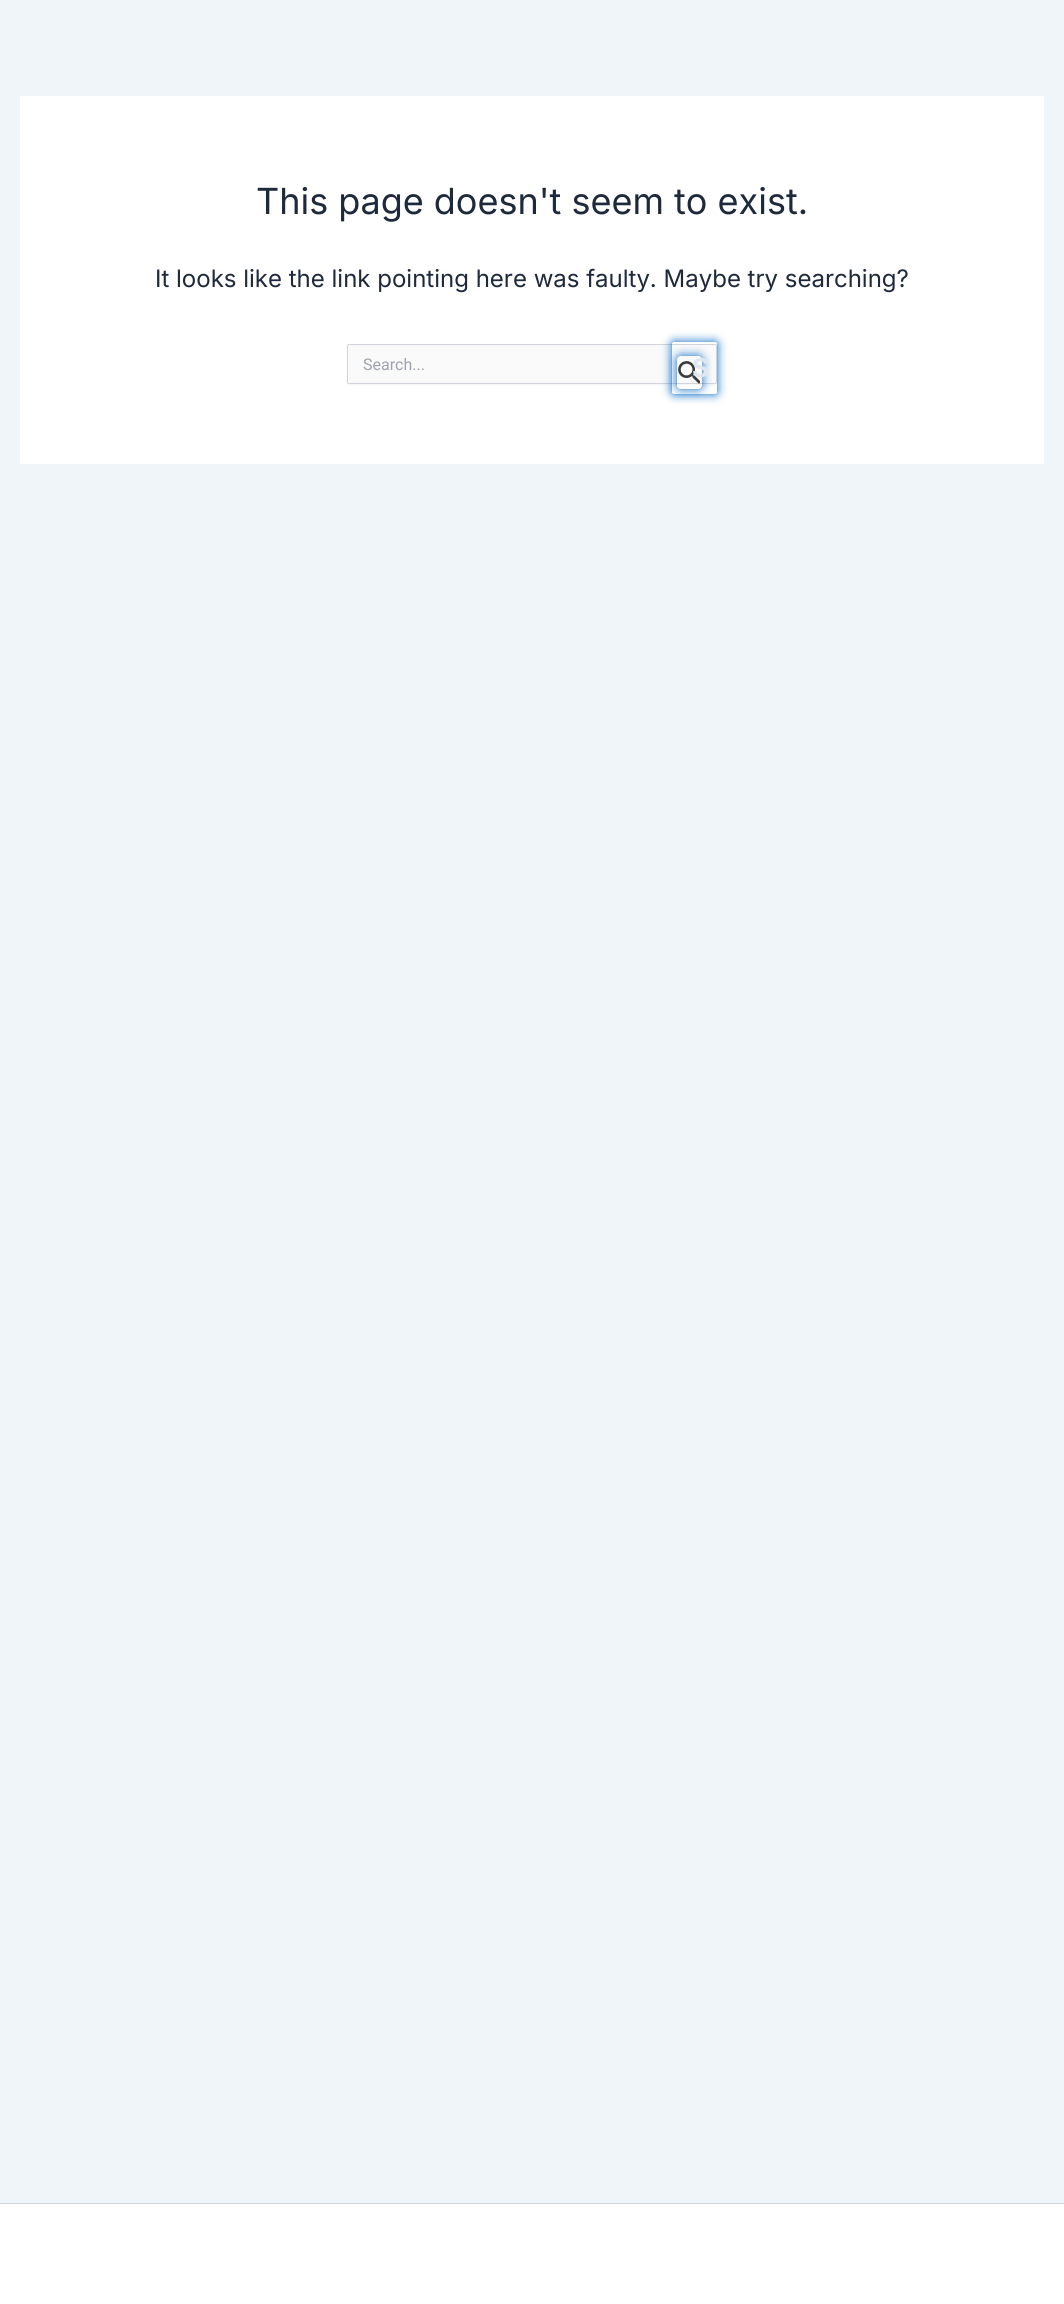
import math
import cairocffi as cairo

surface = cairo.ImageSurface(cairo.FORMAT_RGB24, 1064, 2304)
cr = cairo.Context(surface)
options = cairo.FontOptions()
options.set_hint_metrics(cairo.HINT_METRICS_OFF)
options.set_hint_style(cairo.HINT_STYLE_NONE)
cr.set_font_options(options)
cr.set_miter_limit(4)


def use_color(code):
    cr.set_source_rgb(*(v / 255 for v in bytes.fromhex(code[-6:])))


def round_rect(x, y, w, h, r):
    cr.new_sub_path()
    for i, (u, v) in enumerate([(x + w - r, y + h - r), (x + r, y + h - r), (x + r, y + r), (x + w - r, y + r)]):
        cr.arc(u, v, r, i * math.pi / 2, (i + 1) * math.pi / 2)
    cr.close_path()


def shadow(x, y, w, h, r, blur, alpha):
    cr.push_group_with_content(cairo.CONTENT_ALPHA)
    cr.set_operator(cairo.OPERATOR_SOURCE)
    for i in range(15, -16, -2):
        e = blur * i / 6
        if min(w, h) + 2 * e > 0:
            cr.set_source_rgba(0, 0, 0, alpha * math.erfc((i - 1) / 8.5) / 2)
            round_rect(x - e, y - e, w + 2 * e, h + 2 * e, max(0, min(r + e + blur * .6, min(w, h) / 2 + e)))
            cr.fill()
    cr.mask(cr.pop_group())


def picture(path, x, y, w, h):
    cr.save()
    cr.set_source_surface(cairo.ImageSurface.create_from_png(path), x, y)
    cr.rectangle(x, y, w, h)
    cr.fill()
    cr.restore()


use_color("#f0f5fa")
cr.paint()
use_color("#ffffff")
cr.rectangle(20, 96, 1024, 368)
cr.fill()
cr.select_font_face("Inter")
cr.set_font_size(36)
use_color("#1e293b")
cr.move_to(256, 214)
cr.show_text("This page doesn't seem to exist.")
cr.set_font_size(24)
cr.move_to(155, 287)
cr.show_text("It looks like the link pointing here was faulty. Maybe try searching?")
use_color("#000000")
shadow(347, 345, 370, 40, 2, 1, 0.05)
use_color("#fafafa")
round_rect(347.5, 344.5, 369, 39, 1.5)
cr.fill_preserve()
use_color("#d1d5db")
cr.set_line_width(1)
cr.stroke()
cr.select_font_face("Roboto")
cr.set_font_size(16)
use_color("#9ca3af")
cr.move_to(363, 370)
cr.show_text("Search...")
cr.save()
cr.set_fill_rule(cairo.FILL_RULE_EVEN_ODD)
cr.new_path()
cr.move_to(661, 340)
cr.line_to(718, 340)
cr.line_to(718, 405)
cr.line_to(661, 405)
cr.close_path()
cr.move_to(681, 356)
cr.line_to(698, 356)
cr.curve_to(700, 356, 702, 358, 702, 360)
cr.line_to(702, 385)
cr.curve_to(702, 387, 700, 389, 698, 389)
cr.line_to(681, 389)
cr.curve_to(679, 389, 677, 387, 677, 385)
cr.line_to(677, 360)
cr.curve_to(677, 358, 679, 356, 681, 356)
cr.close_path()
cr.clip()
use_color("#0064c4")
shadow(677, 356, 25, 33, 4, 5, 1)
cr.restore()
picture("img1.png", 678, 361, 22, 23)
cr.save()
cr.set_fill_rule(cairo.FILL_RULE_EVEN_ODD)
cr.new_path()
cr.move_to(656, 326)
cr.line_to(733, 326)
cr.line_to(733, 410)
cr.line_to(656, 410)
cr.close_path()
cr.move_to(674, 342)
cr.line_to(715, 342)
cr.curve_to(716, 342, 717, 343, 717, 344)
cr.line_to(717, 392)
cr.curve_to(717, 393, 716, 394, 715, 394)
cr.line_to(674, 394)
cr.curve_to(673, 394, 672, 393, 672, 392)
cr.line_to(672, 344)
cr.curve_to(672, 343, 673, 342, 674, 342)
cr.close_path()
cr.clip()
use_color("#0064c4")
shadow(672, 342, 45, 52, 2, 5, 1)
cr.restore()
cr.select_font_face("Inter", cairo.FONT_SLANT_NORMAL, cairo.FONT_WEIGHT_BOLD)
cr.set_font_size(26)
use_color("#dfe7f0")
cr.move_to(692, 377)
cr.show_text("S")
use_color("#ffffff")
cr.rectangle(0, 2204, 1064, 100)
cr.fill()
use_color("#d1d5db")
cr.rectangle(0, 2203, 1064, 1)
cr.fill()
surface.write_to_png("result.png")
